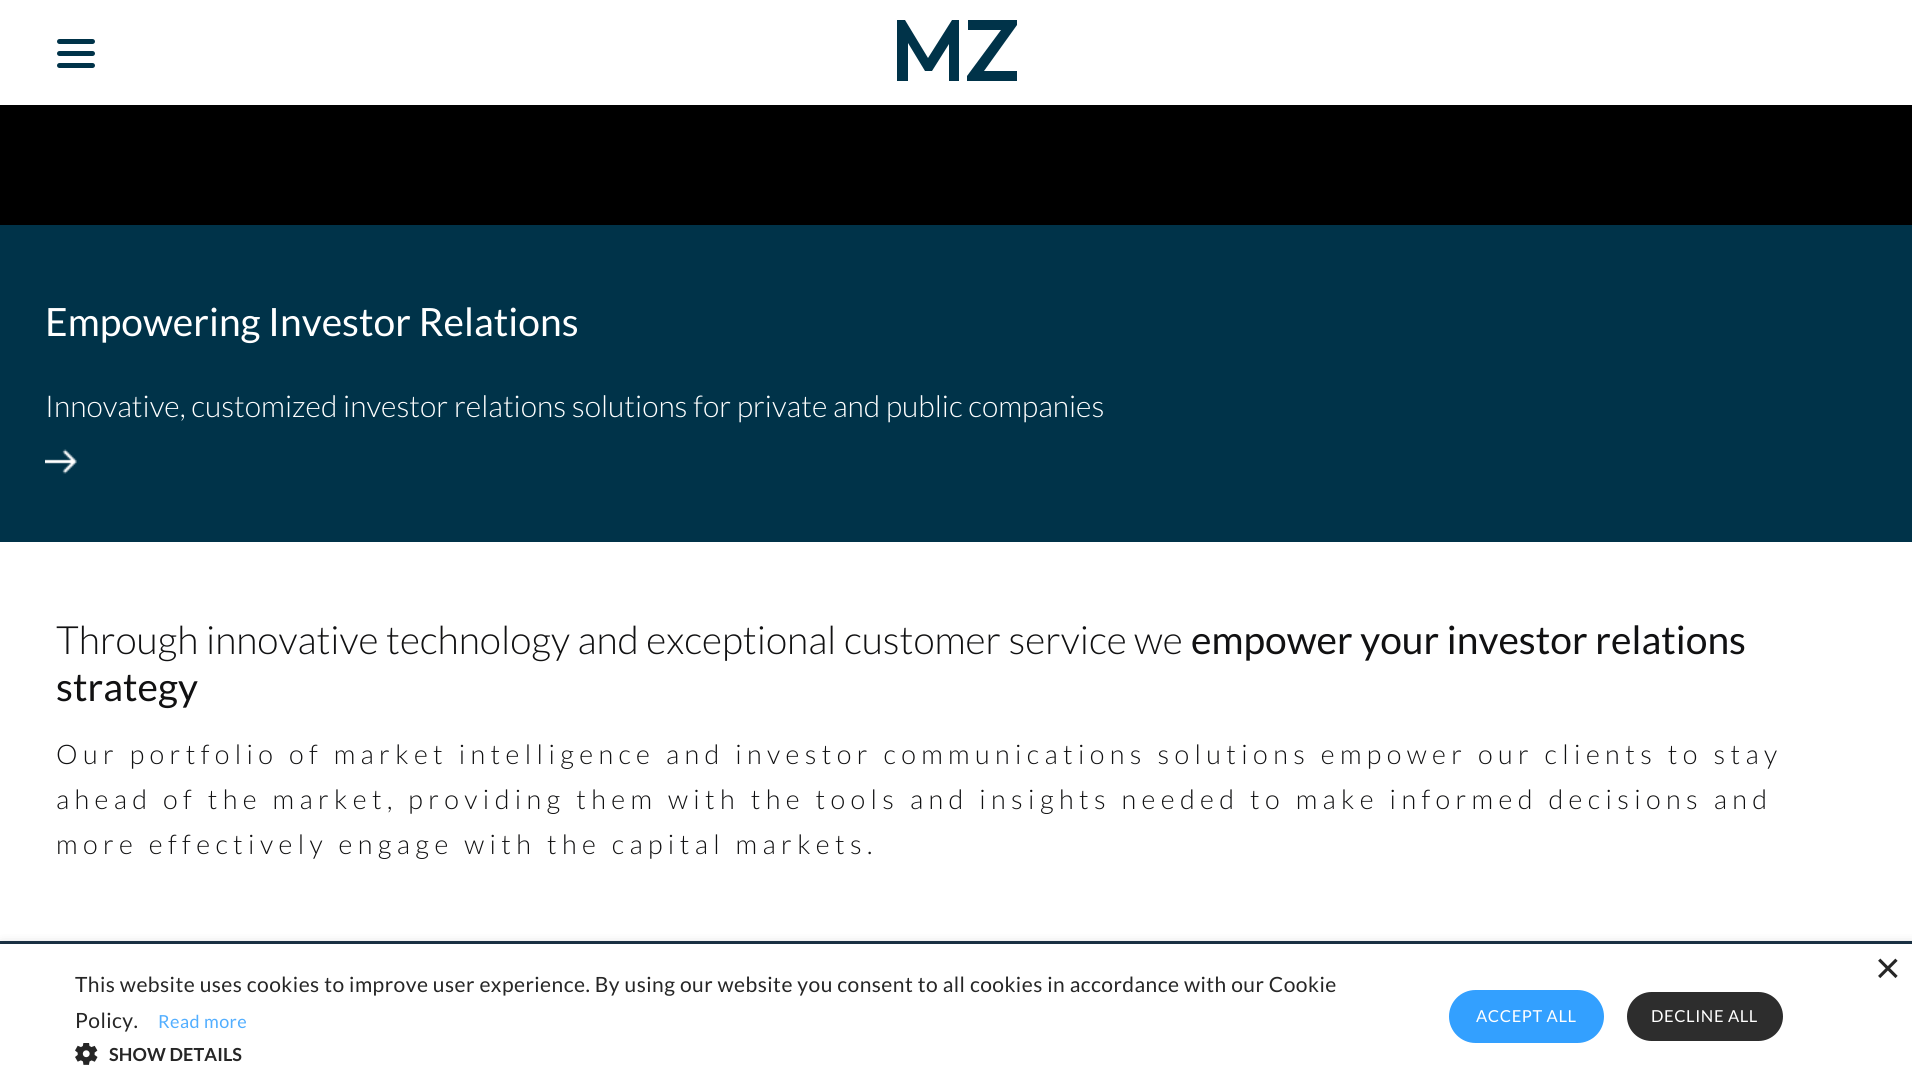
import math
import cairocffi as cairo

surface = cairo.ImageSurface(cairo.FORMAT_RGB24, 1912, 1087)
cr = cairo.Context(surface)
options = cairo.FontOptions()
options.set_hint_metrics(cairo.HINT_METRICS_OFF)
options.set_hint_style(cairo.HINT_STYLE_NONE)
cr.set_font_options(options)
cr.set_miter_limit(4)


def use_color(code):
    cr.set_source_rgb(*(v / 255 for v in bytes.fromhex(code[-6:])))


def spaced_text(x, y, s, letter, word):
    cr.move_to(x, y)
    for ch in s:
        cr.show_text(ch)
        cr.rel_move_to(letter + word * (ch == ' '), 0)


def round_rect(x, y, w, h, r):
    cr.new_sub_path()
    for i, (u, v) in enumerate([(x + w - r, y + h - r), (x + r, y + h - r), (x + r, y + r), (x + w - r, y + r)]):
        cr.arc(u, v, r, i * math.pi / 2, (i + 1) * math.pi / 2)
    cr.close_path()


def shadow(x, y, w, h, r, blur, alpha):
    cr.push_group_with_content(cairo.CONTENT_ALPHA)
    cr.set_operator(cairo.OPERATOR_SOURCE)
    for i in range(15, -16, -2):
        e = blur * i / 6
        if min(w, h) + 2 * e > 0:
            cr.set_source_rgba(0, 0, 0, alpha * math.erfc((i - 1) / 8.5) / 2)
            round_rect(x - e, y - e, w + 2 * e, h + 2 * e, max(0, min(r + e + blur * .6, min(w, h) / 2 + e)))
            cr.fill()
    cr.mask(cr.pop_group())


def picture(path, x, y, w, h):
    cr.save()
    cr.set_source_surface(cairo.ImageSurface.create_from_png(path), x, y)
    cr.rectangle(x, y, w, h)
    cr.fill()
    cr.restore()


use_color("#ffffff")
cr.paint()
use_color("#003349")
round_rect(57, 39, 38, 5, 2.5)
cr.fill()
round_rect(57, 51, 38, 5, 2.5)
cr.fill()
round_rect(57, 63, 38, 5, 2.5)
cr.fill()
cr.new_path()
cr.move_to(959, 20)
cr.line_to(959, 81)
cr.line_to(949, 81)
cr.line_to(949, 44)
cr.line_to(932, 71)
cr.line_to(925, 71)
cr.line_to(908, 43)
cr.line_to(908, 81)
cr.line_to(897, 81)
cr.line_to(897, 20)
cr.line_to(905, 20)
cr.line_to(928, 58)
cr.line_to(952, 20)
cr.close_path()
cr.move_to(1017, 71)
cr.line_to(1017, 81)
cr.line_to(967, 81)
cr.line_to(967, 76)
cr.line_to(1001, 30)
cr.line_to(968, 30)
cr.line_to(968, 20)
cr.line_to(1017, 20)
cr.line_to(1017, 25)
cr.line_to(984, 71)
cr.close_path()
cr.fill()
use_color("#000000")
cr.rectangle(0, 105, 1912, 120)
cr.fill()
use_color("#003349")
cr.rectangle(0, 225, 1912, 317)
cr.fill()
cr.select_font_face("Lato")
cr.set_font_size(39)
use_color("#ffffff")
cr.move_to(45, 336)
cr.show_text("Empowering Investor Relations")
cr.select_font_face("Lato Light")
cr.set_font_size(30)
cr.move_to(45, 417)
cr.show_text("Innovative, customized investor relations solutions for private and public companies")
picture("img1.png", 45, 449, 32, 25)
cr.set_font_size(39)
use_color("#111112")
cr.move_to(56, 654)
cr.show_text("Through innovative technology and exceptional customer service we")
cr.select_font_face("Lato")
cr.move_to(1191, 654)
cr.show_text("empower your investor relations")
cr.move_to(56, 701)
cr.show_text("strategy")
cr.select_font_face("Lato Light")
cr.set_font_size(27)
spaced_text(56, 764, "Our portfolio of market intelligence and investor communications solutions empower our clients to stay", 5.4, 0)
spaced_text(56, 809, "ahead of the market, providing them with the tools and insights needed to make informed decisions and", 5.4, 0)
spaced_text(56, 854, "more effectively engage with the capital markets.", 5.4, 0)
use_color("#1d3448")
cr.rectangle(0, 941, 1912, 3)
cr.fill()
use_color("#000000")
shadow(2, 947, 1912, 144, 0, 6, 0.35)
use_color("#ffffff")
cr.rectangle(0, 944, 1912, 143)
cr.fill()
cr.select_font_face("Liberation Sans")
cr.set_font_size(44)
use_color("#262626")
cr.move_to(1875, 983)
cr.show_text("×")
cr.select_font_face("Lato")
cr.set_font_size(21)
spaced_text(75, 992, "This website uses cookies to improve user experience. By using our website you consent to all cookies in accordance with our Cookie", 0.45, 0)
spaced_text(75, 1028, "Policy.", 0.45, 0)
cr.set_font_size(18)
use_color("#52aeff")
spaced_text(158, 1028, "Read more", 0.45, 0)
picture("img2.png", 75, 1043, 23, 22)
cr.select_font_face("Lato", cairo.FONT_SLANT_NORMAL, cairo.FONT_WEIGHT_BOLD)
use_color("#262626")
spaced_text(109, 1061, "SHOW DETAILS", 0.1, 0)
use_color("#33a0ff")
round_rect(1449, 990, 155, 53, 26.5)
cr.fill()
cr.select_font_face("Lato")
cr.set_font_size(16.5)
use_color("#ffffff")
spaced_text(1476, 1022, "ACCEPT ALL", 0.6, 0)
use_color("#2d2d2d")
round_rect(1626, 991, 158, 51, 25.5)
cr.fill_preserve()
use_color("#ffffff")
cr.stroke()
spaced_text(1651, 1022, "DECLINE ALL", 0.6, 0)
surface.write_to_png("result.png")
